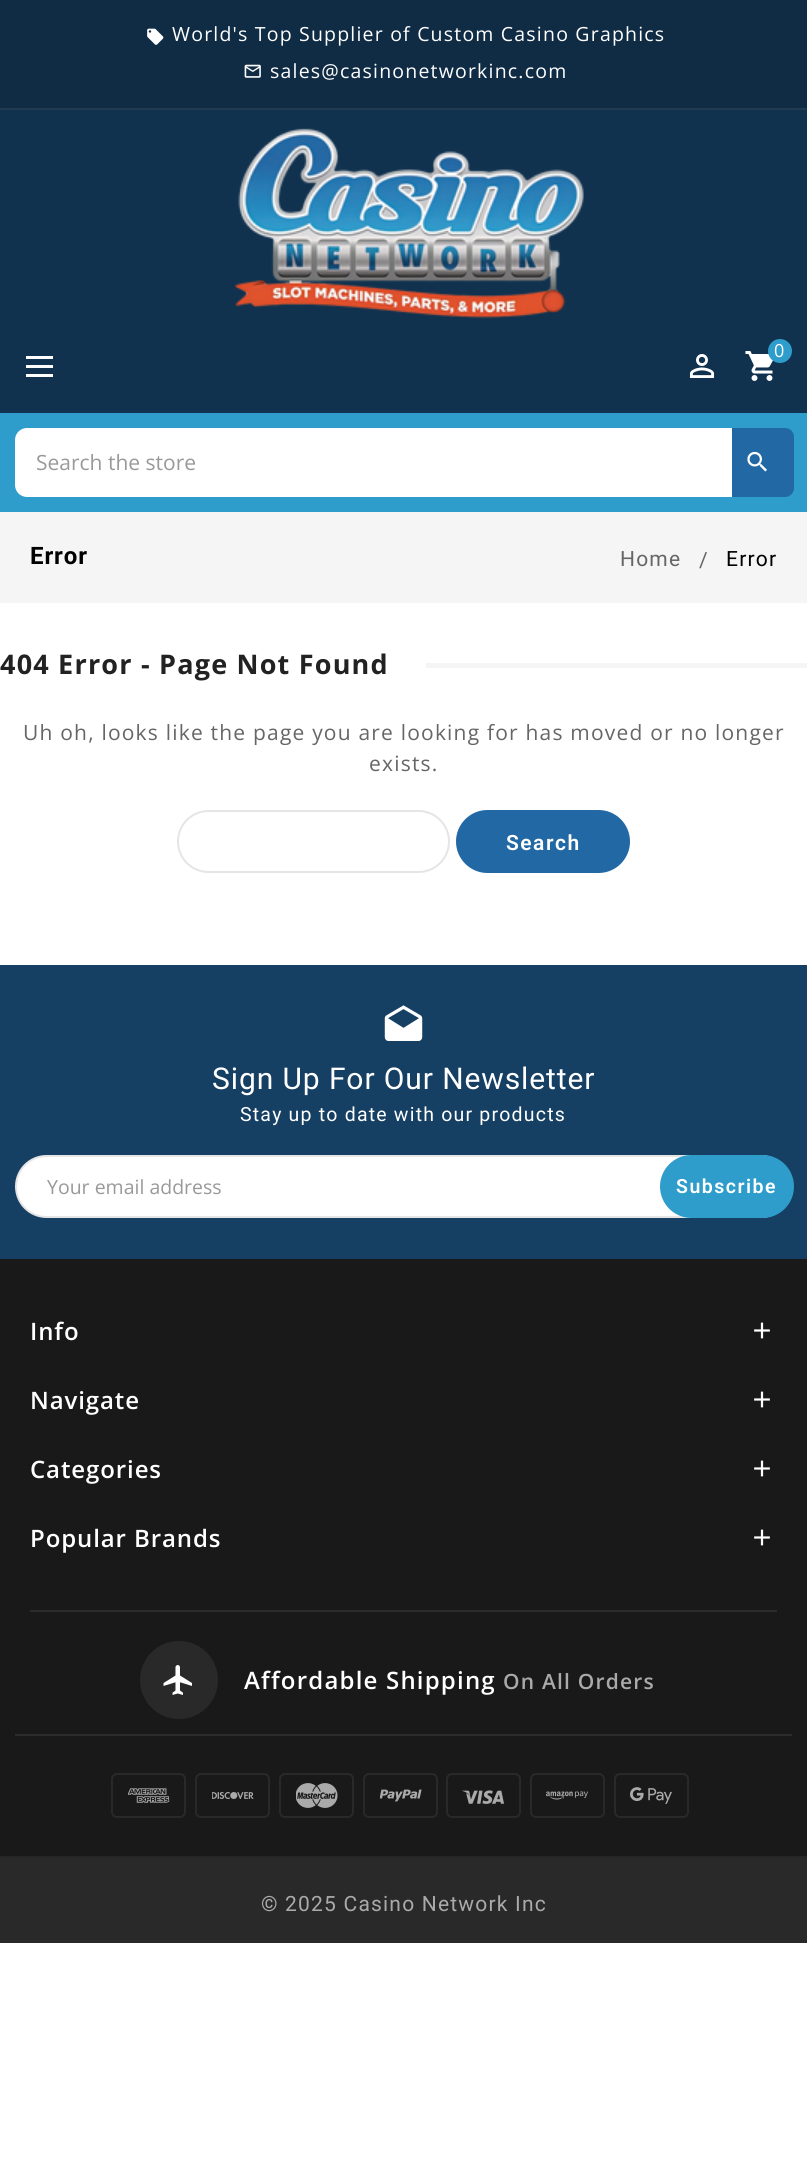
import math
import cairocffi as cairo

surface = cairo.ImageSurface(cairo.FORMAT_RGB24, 807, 2164)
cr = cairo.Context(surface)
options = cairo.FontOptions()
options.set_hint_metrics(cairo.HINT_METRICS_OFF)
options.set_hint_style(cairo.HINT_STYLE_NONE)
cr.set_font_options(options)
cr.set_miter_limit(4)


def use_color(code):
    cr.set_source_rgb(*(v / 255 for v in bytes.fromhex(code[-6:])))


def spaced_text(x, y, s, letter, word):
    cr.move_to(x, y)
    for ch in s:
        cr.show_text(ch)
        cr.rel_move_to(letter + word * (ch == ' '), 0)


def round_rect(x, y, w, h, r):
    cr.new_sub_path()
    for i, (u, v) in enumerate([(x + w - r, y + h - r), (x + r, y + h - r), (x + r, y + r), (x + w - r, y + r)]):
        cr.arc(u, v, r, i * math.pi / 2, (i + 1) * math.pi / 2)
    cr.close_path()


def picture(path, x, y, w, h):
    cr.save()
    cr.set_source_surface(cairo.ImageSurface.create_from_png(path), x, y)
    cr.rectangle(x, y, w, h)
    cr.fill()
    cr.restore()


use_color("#ffffff")
cr.paint()
use_color("#102c45")
cr.rectangle(0, 0, 807, 108)
cr.fill()
use_color("#213b52")
cr.rectangle(0, 108, 807, 2)
cr.fill()
picture("img1.png", 147, 28, 17, 17)
cr.select_font_face("Open Sans")
cr.set_font_size(19.5)
use_color("#ffffff")
spaced_text(172, 41, "World's Top Supplier of Custom Casino Graphics", 1.2, 0)
picture("img2.png", 244, 64, 17, 14)
spaced_text(270, 78, "sales@casinonetworkinc.com", 1.2, 0)
use_color("#10324f")
cr.rectangle(0, 110, 807, 303)
cr.fill()
picture("img3.png", 234, 128, 350, 191)
picture("img4.png", 745, 351, 29, 30)
use_color("#2e9dcb")
cr.arc(780, 351, 12, 0, 2 * math.pi)
cr.fill()
cr.set_font_size(18)
use_color("#ffffff")
spaced_text(774, 357, "0", 1.2, 0)
picture("img5.png", 689, 354, 26, 24)
use_color("#2e9dcb")
cr.rectangle(0, 413, 807, 99)
cr.fill()
use_color("#ffffff")
cr.rectangle(26, 365, 27, 3)
cr.fill()
cr.rectangle(26, 356, 27, 3)
cr.fill()
cr.rectangle(26, 374, 27, 3)
cr.fill()
round_rect(15, 428, 777, 69, 12)
cr.fill()
cr.set_font_size(21)
use_color("#999999")
cr.move_to(36, 470)
cr.show_text("Search the store")
use_color("#2268a4")
cr.new_path()
cr.move_to(732, 428)
cr.line_to(785, 428)
cr.curve_to(790, 428, 794, 432, 794, 437)
cr.line_to(794, 488)
cr.curve_to(794, 493, 790, 497, 785, 497)
cr.line_to(732, 497)
cr.close_path()
cr.fill()
picture("img6.png", 747, 451, 20, 21)
use_color("#f5f5f5")
cr.rectangle(0, 512, 807, 91)
cr.fill()
cr.select_font_face("Roboto", cairo.FONT_SLANT_NORMAL, cairo.FONT_WEIGHT_BOLD)
cr.set_font_size(24)
use_color("#000000")
spaced_text(30, 564, "Error", 0.9, 0)
cr.select_font_face("Roboto")
cr.set_font_size(21)
use_color("#666666")
spaced_text(620, 566, "Home", 1.2, 0)
spaced_text(699, 567, "/", 1.2, 0)
use_color("#000000")
spaced_text(726, 566, "Error", 1.2, 0)
cr.select_font_face("Open Sans", cairo.FONT_SLANT_NORMAL, cairo.FONT_WEIGHT_BOLD)
cr.set_font_size(27)
use_color("#222222")
spaced_text(0, 674, "404 Error - Page Not Found", 1.2, 0)
use_color("#f5f5f5")
cr.rectangle(426, 663, 381, 5)
cr.fill()
cr.select_font_face("Open Sans")
cr.set_font_size(21)
use_color("#666666")
spaced_text(23, 740, "Uh oh, looks like the page you are looking for has moved or no longer", 1.2, 0)
spaced_text(369, 771, "exists.", 1.2, 0)
round_rect(178, 811, 271, 61, 30.5)
use_color("#e5e5e5")
cr.stroke()
use_color("#2268a4")
round_rect(457, 811, 172, 61, 30.5)
cr.fill_preserve()
cr.stroke()
cr.select_font_face("Roboto SemiBold")
use_color("#ffffff")
spaced_text(506, 850, "Search", 1.5, 0)
use_color("#191919")
cr.rectangle(0, 1259, 807, 597)
cr.fill()
use_color("#153f63")
cr.rectangle(0, 965, 807, 294)
cr.fill()
picture("img7.png", 384, 1005, 39, 36)
cr.select_font_face("Roboto")
cr.set_font_size(30)
use_color("#ffffff")
spaced_text(212, 1089, "Sign Up For Our Newsletter", 0.9, 0)
cr.set_font_size(19.5)
spaced_text(240, 1121, "Stay up to date with our products", 1.2, 0)
round_rect(16, 1156, 775, 61, 30.5)
cr.fill_preserve()
use_color("#e5e5e5")
cr.stroke()
cr.select_font_face("Open Sans")
use_color("#999999")
cr.move_to(47, 1194)
cr.show_text("Your email address")
use_color("#2e9dcb")
round_rect(661, 1156, 132, 61, 30.5)
cr.fill_preserve()
cr.stroke()
cr.select_font_face("Roboto SemiBold")
use_color("#ffffff")
spaced_text(676, 1193, "Subscribe", 1.5, 0)
cr.select_font_face("Open Sans SemiBold")
cr.set_font_size(24)
spaced_text(30, 1340, "Info", 0.9, 0)
picture("img8.png", 754, 1322, 16, 17)
spaced_text(30, 1409, "Navigate", 0.9, 0)
picture("img8.png", 754, 1391, 16, 17)
spaced_text(30, 1478, "Categories", 0.9, 0)
picture("img8.png", 754, 1460, 16, 17)
spaced_text(30, 1547, "Popular Brands", 0.9, 0)
picture("img8.png", 754, 1529, 16, 17)
use_color("#2b2b2b")
cr.rectangle(30, 1610, 747, 2)
cr.fill()
use_color("#292929")
cr.arc(179, 1680, 39, 0, 2 * math.pi)
cr.fill()
picture("img9.png", 163, 1665, 29, 30)
use_color("#ffffff")
spaced_text(244, 1689, "Affordable Shipping", 1.2, 0)
cr.set_font_size(21)
use_color("#aaaaaa")
spaced_text(503, 1689, "On All Orders", 1.2, 0)
use_color("#2b2b2b")
cr.rectangle(15, 1734, 777, 2)
cr.fill()
round_rect(112, 1774, 73, 43, 5)
use_color("#292929")
cr.stroke()
picture("img10.png", 128, 1788, 42, 15)
round_rect(196, 1774, 73, 43, 5)
cr.stroke()
picture("img11.png", 212, 1792, 42, 8)
round_rect(280, 1774, 73, 43, 5)
cr.stroke()
picture("img12.png", 296, 1783, 42, 25)
round_rect(364, 1774, 73, 43, 5)
cr.stroke()
picture("img13.png", 380, 1789, 42, 13)
round_rect(447, 1774, 73, 43, 5)
cr.stroke()
picture("img14.png", 462, 1790, 42, 14)
round_rect(531, 1774, 73, 43, 5)
cr.stroke()
picture("img15.png", 546, 1791, 42, 9)
round_rect(615, 1774, 73, 43, 5)
cr.stroke()
picture("img16.png", 630, 1787, 42, 17)
cr.rectangle(0, 1858, 807, 85)
cr.fill()
use_color("#262626")
cr.rectangle(0, 1856, 807, 2)
cr.fill()
cr.select_font_face("Roboto")
use_color("#aaaaaa")
spaced_text(261, 1911, "© 2025 Casino Network Inc", 1.2, 0)
surface.write_to_png("result.png")
